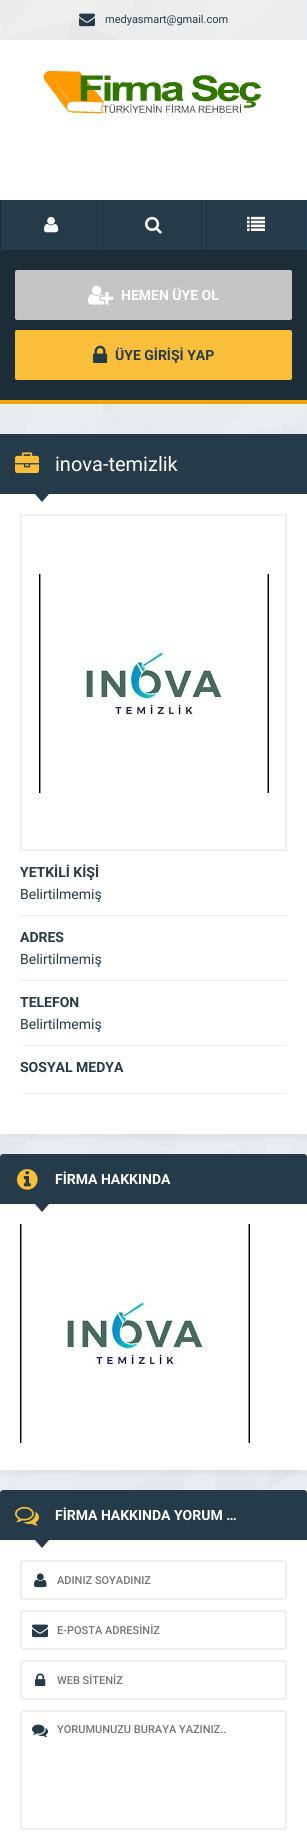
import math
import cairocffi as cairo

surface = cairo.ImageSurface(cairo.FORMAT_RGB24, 307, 1842)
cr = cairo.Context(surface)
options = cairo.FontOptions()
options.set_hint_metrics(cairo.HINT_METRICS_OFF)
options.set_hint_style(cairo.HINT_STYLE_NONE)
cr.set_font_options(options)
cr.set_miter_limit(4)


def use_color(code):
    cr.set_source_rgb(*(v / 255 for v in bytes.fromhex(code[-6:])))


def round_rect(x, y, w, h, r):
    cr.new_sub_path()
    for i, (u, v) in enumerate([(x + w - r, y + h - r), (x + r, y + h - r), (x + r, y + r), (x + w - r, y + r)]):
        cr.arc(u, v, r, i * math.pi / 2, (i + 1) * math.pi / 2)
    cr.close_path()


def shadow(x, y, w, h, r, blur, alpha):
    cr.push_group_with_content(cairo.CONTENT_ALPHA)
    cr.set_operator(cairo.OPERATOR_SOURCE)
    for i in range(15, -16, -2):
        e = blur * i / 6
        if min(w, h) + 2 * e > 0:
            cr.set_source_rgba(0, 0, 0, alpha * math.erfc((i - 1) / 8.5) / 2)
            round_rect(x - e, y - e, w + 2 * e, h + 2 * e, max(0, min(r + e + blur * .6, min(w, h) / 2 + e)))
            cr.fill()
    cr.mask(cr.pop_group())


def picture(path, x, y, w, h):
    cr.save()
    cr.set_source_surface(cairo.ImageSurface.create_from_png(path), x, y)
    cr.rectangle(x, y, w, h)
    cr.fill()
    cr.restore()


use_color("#ffffff")
cr.paint()
picture("img1.png", 0, 0, 307, 1493)
picture("img2.png", 0, 0, 306, 40)
picture("img3.png", 79, 13, 16, 14)
cr.select_font_face("Roboto")
cr.set_font_size(11)
use_color("#253b49")
cr.move_to(105, 23)
cr.show_text("medyasmart@gmail.com")
use_color("#ffffff")
cr.rectangle(0, 40, 307, 160)
cr.fill()
picture("img4.png", 43, 71, 219, 43)
use_color("#253b49")
cr.rectangle(1, 200, 100, 50)
cr.fill()
use_color("#2c4657")
cr.rectangle(101, 200, 1, 50)
cr.fill()
use_color("#1c2d38")
cr.rectangle(0, 200, 1, 50)
cr.fill()
picture("img5.png", 44, 216, 15, 17)
use_color("#253b49")
cr.rectangle(103, 200, 101, 50)
cr.fill()
use_color("#2c4657")
cr.rectangle(204, 200, 1, 50)
cr.fill()
use_color("#1c2d38")
cr.rectangle(102, 200, 1, 50)
cr.fill()
picture("img6.png", 145, 216, 17, 18)
use_color("#253b49")
cr.rectangle(206, 200, 100, 50)
cr.fill()
use_color("#2c4657")
cr.rectangle(306, 200, 1, 50)
cr.fill()
use_color("#1c2d38")
cr.rectangle(205, 200, 1, 50)
cr.fill()
picture("img7.png", 247, 216, 18, 15)
cr.rectangle(0, 250, 307, 150)
cr.fill()
use_color("#c5c5c5")
round_rect(15, 270, 277, 50, 2)
cr.fill()
picture("img8.png", 88, 285, 26, 20)
cr.select_font_face("Roboto", cairo.FONT_SLANT_NORMAL, cairo.FONT_WEIGHT_BOLD)
cr.set_font_size(14)
use_color("#ffffff")
cr.move_to(121, 300)
cr.show_text("HEMEN ÜYE OL")
use_color("#f9bf3b")
round_rect(15, 330, 277, 50, 2)
cr.fill()
picture("img9.png", 93, 345, 15, 18)
use_color("#253b49")
cr.move_to(115, 360)
cr.show_text("ÜYE GİRİŞİ YAP")
use_color("#eba507")
cr.rectangle(0, 400, 307, 4)
cr.fill()
use_color("#000000")
shadow(0, 497, 307, 640, 0, 4, 0.06)
use_color("#253b49")
cr.rectangle(0, 434, 307, 60)
cr.fill()
picture("img10.png", 15, 452, 24, 21)
cr.select_font_face("Roboto")
cr.set_font_size(20)
use_color("#ffffff")
cr.move_to(55, 471)
cr.show_text("inova-temizlik")
cr.rectangle(0, 494, 307, 640)
cr.fill()
use_color("#253b49")
cr.new_path()
cr.move_to(35, 494)
cr.line_to(49, 494)
cr.line_to(42, 502)
cr.close_path()
cr.fill()
cr.rectangle(21, 515, 265, 335)
use_color("#efefef")
cr.stroke()
picture("img11.png", 39, 574, 230, 219)
cr.rectangle(20, 915, 267, 1)
cr.fill()
cr.select_font_face("Roboto", cairo.FONT_SLANT_NORMAL, cairo.FONT_WEIGHT_BOLD)
cr.set_font_size(14)
use_color("#253b49")
cr.move_to(20, 877)
cr.show_text("YETKİLİ KİŞİ")
cr.select_font_face("Roboto")
cr.move_to(20, 899)
cr.show_text("Belirtilmemiş")
use_color("#efefef")
cr.rectangle(20, 980, 267, 1)
cr.fill()
cr.select_font_face("Roboto", cairo.FONT_SLANT_NORMAL, cairo.FONT_WEIGHT_BOLD)
use_color("#253b49")
cr.move_to(20, 942)
cr.show_text("ADRES")
cr.select_font_face("Roboto")
cr.move_to(20, 964)
cr.show_text("Belirtilmemiş")
use_color("#efefef")
cr.rectangle(20, 1045, 267, 1)
cr.fill()
cr.select_font_face("Roboto", cairo.FONT_SLANT_NORMAL, cairo.FONT_WEIGHT_BOLD)
use_color("#253b49")
cr.move_to(20, 1007)
cr.show_text("TELEFON")
cr.select_font_face("Roboto")
cr.move_to(20, 1029)
cr.show_text("Belirtilmemiş")
cr.select_font_face("Roboto", cairo.FONT_SLANT_NORMAL, cairo.FONT_WEIGHT_BOLD)
cr.move_to(20, 1072)
cr.show_text("SOSYAL MEDYA")
use_color("#efefef")
cr.rectangle(20, 1093, 267, 1)
cr.fill()
use_color("#000000")
shadow(0, 1207, 307, 266, 0, 4, 0.06)
use_color("#253b49")
cr.new_path()
cr.move_to(3, 1154)
cr.line_to(304, 1154)
cr.curve_to(305.5, 1154, 307, 1155.5, 307, 1157)
cr.line_to(307, 1204)
cr.line_to(0, 1204)
cr.line_to(0, 1157)
cr.curve_to(0, 1155.5, 1.5, 1154, 3, 1154)
cr.close_path()
cr.fill()
picture("img12.png", 17, 1169, 21, 21)
use_color("#ffffff")
cr.move_to(55, 1184)
cr.show_text("FİRMA HAKKINDA")
cr.rectangle(0, 1204, 307, 266)
cr.fill()
use_color("#253b49")
cr.new_path()
cr.move_to(35, 1204)
cr.line_to(49, 1204)
cr.line_to(42, 1212)
cr.close_path()
cr.fill()
picture("img13.png", 20, 1224, 230, 219)
cr.new_path()
cr.move_to(3, 1490)
cr.line_to(304, 1490)
cr.curve_to(305.5, 1490, 307, 1491.5, 307, 1493)
cr.line_to(307, 1540)
cr.line_to(0, 1540)
cr.line_to(0, 1493)
cr.curve_to(0, 1491.5, 1.5, 1490, 3, 1490)
cr.close_path()
cr.fill()
picture("img14.png", 15, 1506, 24, 20)
use_color("#ffffff")
cr.move_to(55, 1520)
cr.show_text("FİRMA HAKKINDA YORUM …")
use_color("#253b49")
cr.new_path()
cr.move_to(35, 1540)
cr.line_to(49, 1540)
cr.line_to(42, 1548)
cr.close_path()
cr.fill()
round_rect(21, 1561, 265, 38, 2)
use_color("#efefef")
cr.stroke()
picture("img15.png", 34, 1573, 13, 15)
cr.select_font_face("Roboto Medium")
cr.set_font_size(11)
use_color("#757575")
cr.move_to(57, 1584)
cr.show_text("ADINIZ SOYADINIZ")
round_rect(21, 1611, 265, 38, 2)
use_color("#efefef")
cr.stroke()
picture("img16.png", 32, 1624, 16, 14)
use_color("#757575")
cr.move_to(57, 1634)
cr.show_text("E-POSTA ADRESİNİZ")
round_rect(21, 1661, 265, 38, 2)
use_color("#efefef")
cr.stroke()
picture("img17.png", 35, 1673, 11, 13)
use_color("#757575")
cr.move_to(57, 1684)
cr.show_text("WEB SİTENİZ")
round_rect(21, 1711, 265, 118, 2)
use_color("#efefef")
cr.stroke()
picture("img18.png", 32, 1724, 16, 14)
use_color("#757575")
cr.move_to(57, 1733)
cr.show_text("YORUMUNUZU BURAYA YAZINIZ..")
surface.write_to_png("result.png")
